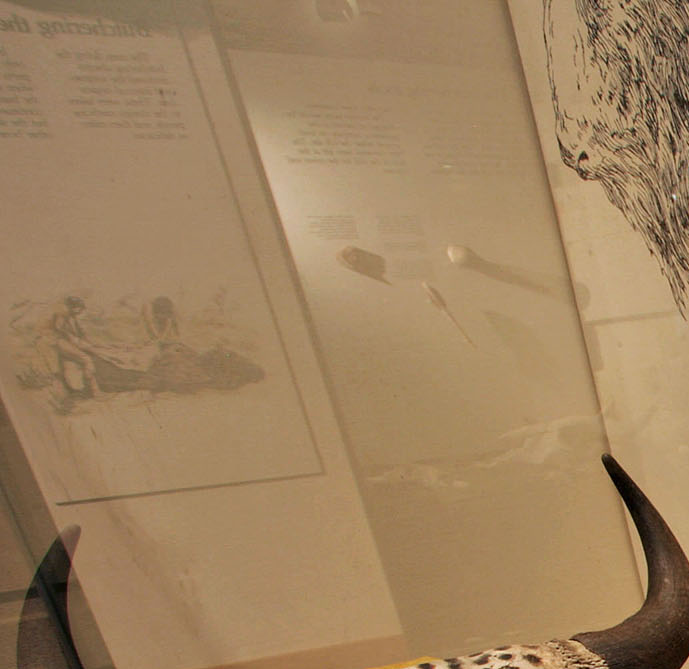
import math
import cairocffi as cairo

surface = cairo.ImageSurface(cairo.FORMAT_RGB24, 689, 669)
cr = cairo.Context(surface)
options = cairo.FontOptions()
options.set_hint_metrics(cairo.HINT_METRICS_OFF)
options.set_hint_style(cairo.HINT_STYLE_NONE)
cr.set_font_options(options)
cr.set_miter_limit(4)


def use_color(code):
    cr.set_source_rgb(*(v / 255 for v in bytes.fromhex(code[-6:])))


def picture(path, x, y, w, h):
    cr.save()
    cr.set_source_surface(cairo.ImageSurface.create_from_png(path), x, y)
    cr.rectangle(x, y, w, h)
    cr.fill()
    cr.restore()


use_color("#ffffff")
cr.paint()
picture("img1.png", 0, 0, 689, 669)
surface.write_to_png("result.png")
